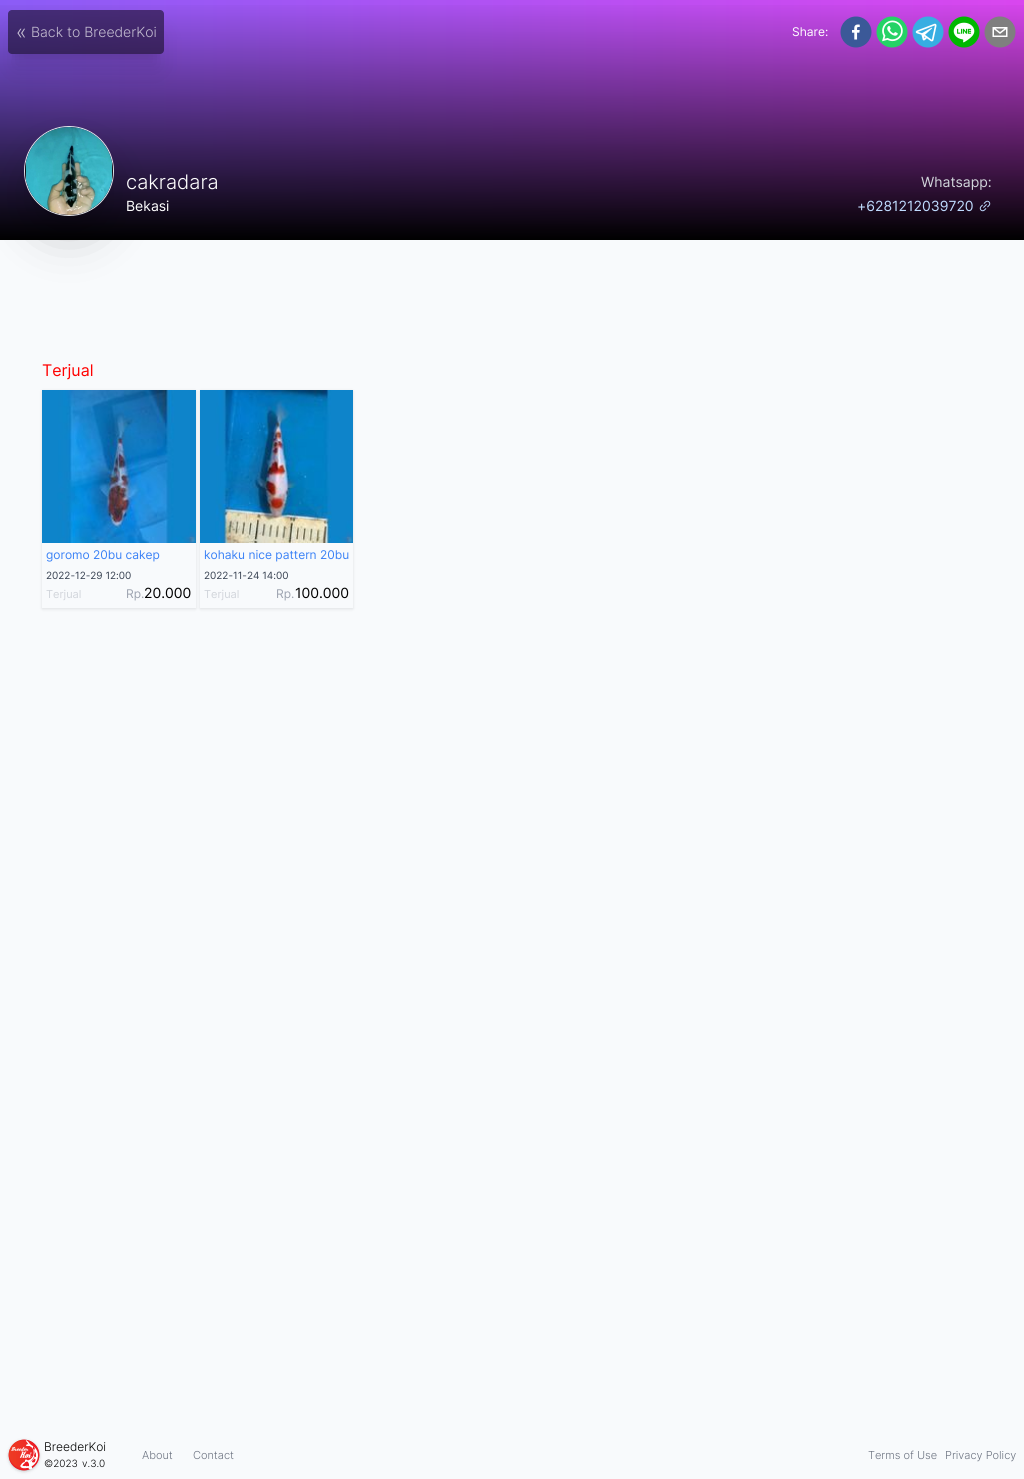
import math
import cairocffi as cairo

surface = cairo.ImageSurface(cairo.FORMAT_RGB24, 1024, 1479)
cr = cairo.Context(surface)
options = cairo.FontOptions()
options.set_hint_metrics(cairo.HINT_METRICS_OFF)
options.set_hint_style(cairo.HINT_STYLE_NONE)
cr.set_font_options(options)
cr.set_miter_limit(4)


def use_color(code):
    cr.set_source_rgb(*(v / 255 for v in bytes.fromhex(code[-6:])))


def round_rect(x, y, w, h, r):
    cr.new_sub_path()
    for i, (u, v) in enumerate([(x + w - r, y + h - r), (x + r, y + h - r), (x + r, y + r), (x + w - r, y + r)]):
        cr.arc(u, v, r, i * math.pi / 2, (i + 1) * math.pi / 2)
    cr.close_path()


def shadow(x, y, w, h, r, blur, alpha):
    cr.push_group_with_content(cairo.CONTENT_ALPHA)
    cr.set_operator(cairo.OPERATOR_SOURCE)
    for i in range(15, -16, -2):
        e = blur * i / 6
        if min(w, h) + 2 * e > 0:
            cr.set_source_rgba(0, 0, 0, alpha * math.erfc((i - 1) / 8.5) / 2)
            round_rect(x - e, y - e, w + 2 * e, h + 2 * e, max(0, min(r + e + blur * .6, min(w, h) / 2 + e)))
            cr.fill()
    cr.mask(cr.pop_group())


def picture(path, x, y, w, h):
    cr.save()
    cr.set_source_surface(cairo.ImageSurface.create_from_png(path), x, y)
    cr.rectangle(x, y, w, h)
    cr.fill()
    cr.restore()


use_color("#f8fafc")
cr.paint()
gradient = cairo.LinearGradient(0, 120, 1024, 120)
gradient.add_color_stop_rgba(0, 0.545, 0.361, 0.965, 1)
gradient.add_color_stop_rgba(1, 0.851, 0.275, 0.937, 1)
cr.set_source(gradient)
cr.rectangle(0, 0, 1024, 239)
cr.fill()
gradient = cairo.LinearGradient(512, 0, 512, 240)
gradient.add_color_stop_rgba(0, 0, 0, 0, 0)
gradient.add_color_stop_rgba(1, 0, 0, 0, 1)
cr.set_source(gradient)
cr.rectangle(0, 5, 1024, 235)
cr.fill()
cr.save()
cr.rectangle(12, 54, 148, 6)
cr.clip()
use_color("#000000")
shadow(14, 24, 144, 32, 0, 5, 0.1)
cr.restore()
cr.save()
cr.set_fill_rule(cairo.FILL_RULE_EVEN_ODD)
cr.new_path()
cr.move_to(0, 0)
cr.line_to(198, 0)
cr.line_to(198, 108)
cr.line_to(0, 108)
cr.close_path()
cr.move_to(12, 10)
cr.line_to(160, 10)
cr.curve_to(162, 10, 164, 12, 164, 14)
cr.line_to(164, 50)
cr.curve_to(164, 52, 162, 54, 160, 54)
cr.line_to(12, 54)
cr.curve_to(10, 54, 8, 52, 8, 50)
cr.line_to(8, 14)
cr.curve_to(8, 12, 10, 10, 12, 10)
cr.close_path()
cr.clip()
use_color("#000000")
shadow(13, 35, 146, 34, 0, 12.5, 0.1)
cr.restore()
cr.set_source_rgba(0, 0, 0, 0.5)
round_rect(8, 10, 156, 44, 4)
cr.fill()
cr.select_font_face("Inter Light")
cr.set_font_size(20)
use_color("#c5bed2")
cr.move_to(16, 39)
cr.show_text("«")
cr.set_font_size(14)
cr.move_to(31, 37)
cr.show_text("Back")
cr.move_to(67, 37)
cr.show_text("to BreederKoi")
cr.select_font_face("Inter")
cr.set_font_size(12)
use_color("#ffffff")
cr.move_to(792, 36)
cr.show_text("Share:")
picture("img1.png", 840, 16, 32, 32)
picture("img2.png", 876, 16, 32, 32)
picture("img3.png", 912, 16, 32, 32)
picture("img4.png", 948, 16, 32, 32)
picture("img5.png", 984, 16, 32, 32)
use_color("#000000")
shadow(36, 163, 66, 66, 33, 25, 0.25)
cr.arc(69, 171, 44.5, 0, 2 * math.pi)
use_color("#e5e7eb")
cr.set_line_width(1)
cr.stroke()
picture("img6.png", 25, 127, 88, 88)
cr.select_font_face("Inter Light")
cr.set_font_size(20)
use_color("#ffffff")
cr.move_to(126, 189)
cr.show_text("cakradara")
cr.select_font_face("Inter")
cr.set_font_size(14)
cr.move_to(126, 211)
cr.show_text("Bekasi")
use_color("#d1d5db")
cr.move_to(921, 187)
cr.show_text("Whatsapp:")
use_color("#bfdbfe")
cr.move_to(857, 211)
cr.show_text("+6281212039720")
picture("img7.png", 979, 200, 12, 12)
cr.set_font_size(16)
use_color("#ff0000")
cr.move_to(42, 376)
cr.show_text("Terjual")
cr.save()
cr.set_fill_rule(cairo.FILL_RULE_EVEN_ODD)
cr.new_path()
cr.move_to(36, 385)
cr.line_to(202, 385)
cr.line_to(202, 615)
cr.line_to(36, 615)
cr.close_path()
cr.move_to(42, 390)
cr.line_to(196, 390)
cr.line_to(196, 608)
cr.line_to(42, 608)
cr.close_path()
cr.clip()
use_color("#000000")
shadow(42, 391, 154, 218, 0, 1.5, 0.1)
cr.restore()
cr.save()
cr.set_fill_rule(cairo.FILL_RULE_EVEN_ODD)
cr.new_path()
cr.move_to(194, 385)
cr.line_to(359, 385)
cr.line_to(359, 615)
cr.line_to(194, 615)
cr.close_path()
cr.move_to(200, 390)
cr.line_to(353, 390)
cr.line_to(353, 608)
cr.line_to(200, 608)
cr.close_path()
cr.clip()
use_color("#000000")
shadow(200, 391, 153, 218, 0, 1.5, 0.1)
cr.restore()
picture("img8.png", 42, 390, 154, 153)
cr.set_font_size(12)
use_color("#3b82f6")
cr.move_to(46, 559)
cr.show_text("goromo 20bu cakep")
cr.set_font_size(10)
use_color("#374151")
cr.move_to(46, 579)
cr.show_text("2022-12-29 12:00")
cr.set_font_size(11)
use_color("#d1d5db")
cr.move_to(46, 598)
cr.show_text("Terjual")
cr.set_font_size(12)
use_color("#9ca3af")
cr.move_to(126, 598)
cr.show_text("Rp.")
cr.set_font_size(14)
use_color("#000000")
cr.move_to(144, 598)
cr.show_text("20.000")
picture("img9.png", 200, 390, 153, 153)
cr.set_font_size(12)
use_color("#3b82f6")
cr.move_to(204, 559)
cr.show_text("kohaku nice pattern 20bu")
cr.set_font_size(10)
use_color("#374151")
cr.move_to(204, 579)
cr.show_text("2022-11-24 14:00")
cr.set_font_size(11)
use_color("#d1d5db")
cr.move_to(204, 598)
cr.show_text("Terjual")
cr.set_font_size(12)
use_color("#9ca3af")
cr.move_to(276, 598)
cr.show_text("Rp.")
cr.set_font_size(14)
use_color("#000000")
cr.move_to(295, 598)
cr.show_text("100.000")
use_color("#000000")
shadow(9, 1441, 30, 30, 15, 1, 0.1)
shadow(8, 1440, 32, 32, 16, 1.5, 0.1)
picture("img10.png", 8, 1439, 32, 32)
cr.select_font_face("Inter Light")
cr.set_font_size(12)
use_color("#000000")
cr.move_to(44, 1451)
cr.show_text("BreederKoi")
cr.set_font_size(10)
cr.move_to(44, 1467)
cr.show_text("©2023")
cr.move_to(82, 1467)
cr.show_text("v.3.0")
cr.set_font_size(11)
use_color("#6b7280")
cr.move_to(142, 1459)
cr.show_text("About")
cr.move_to(193, 1459)
cr.show_text("Contact")
cr.move_to(868, 1459)
cr.show_text("Terms of Use")
cr.move_to(945, 1459)
cr.show_text("Privacy Policy")
surface.write_to_png("result.png")
